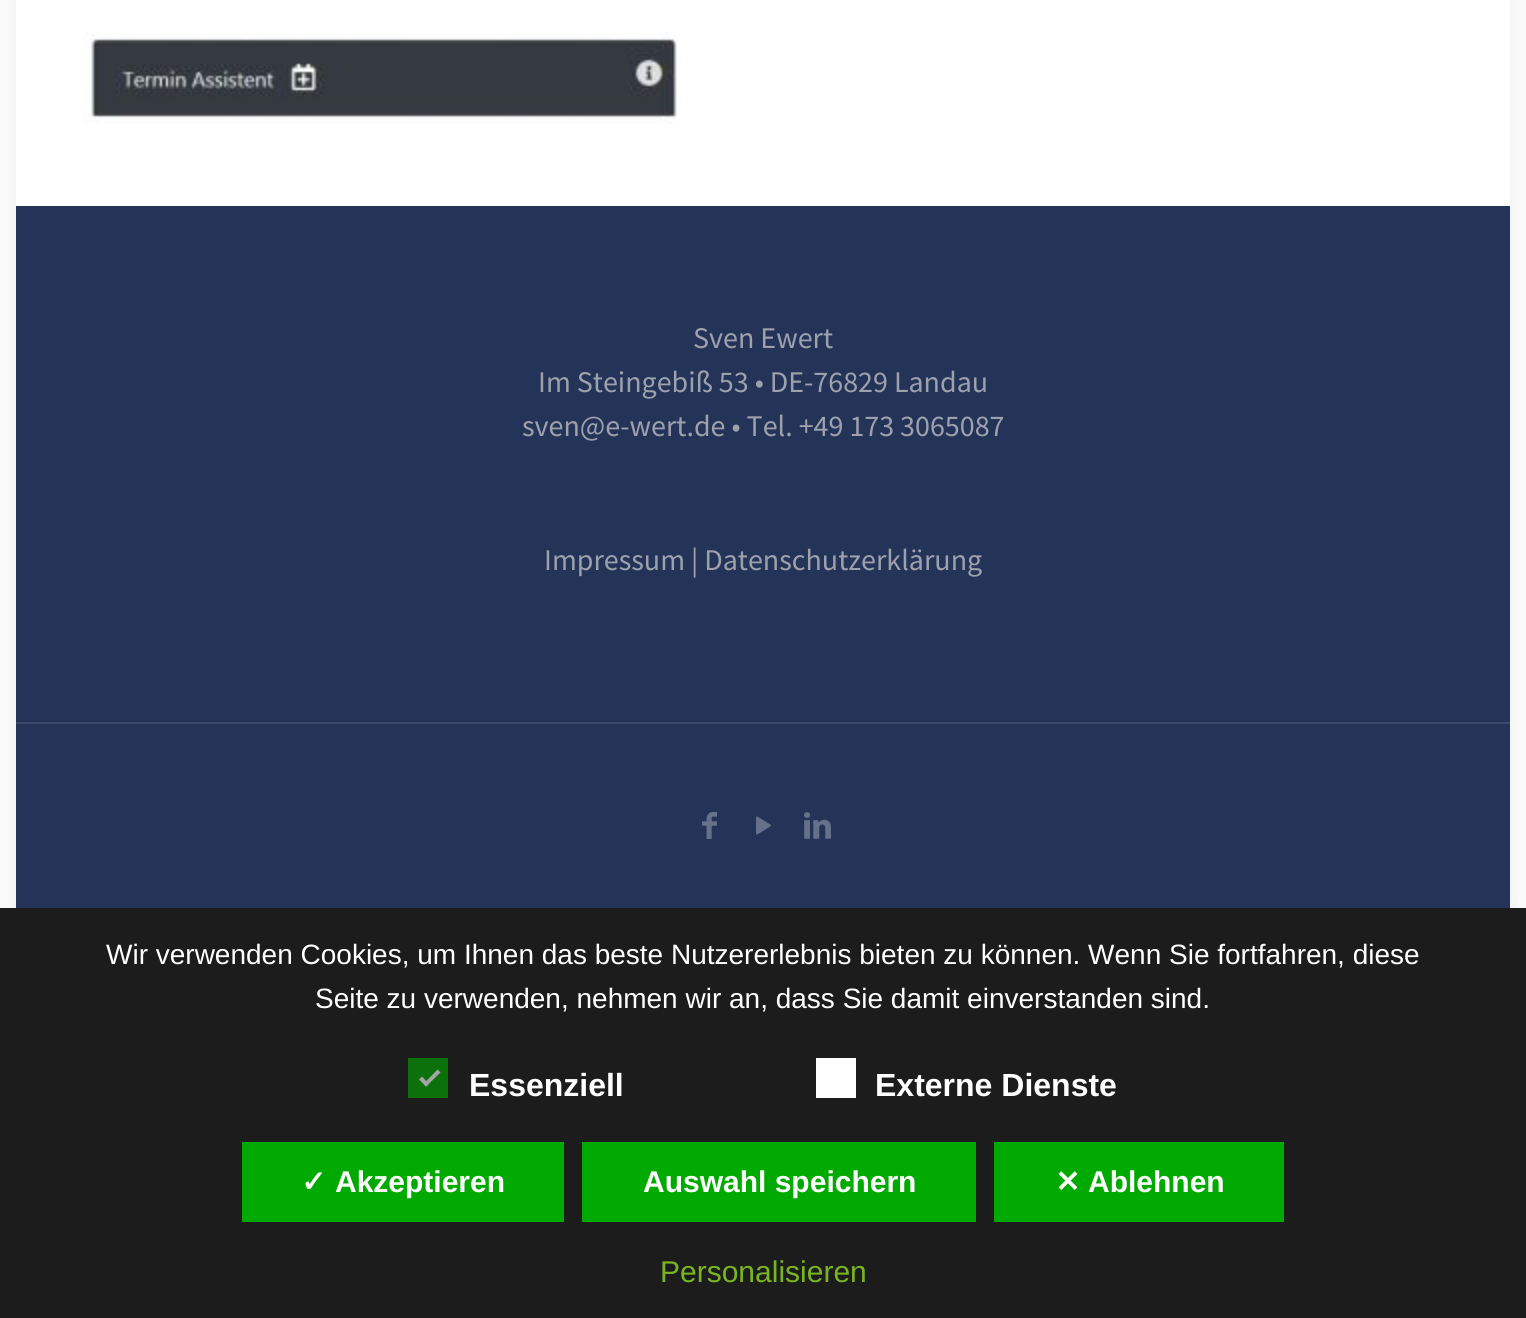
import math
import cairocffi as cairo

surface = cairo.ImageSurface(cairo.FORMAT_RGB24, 1526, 1318)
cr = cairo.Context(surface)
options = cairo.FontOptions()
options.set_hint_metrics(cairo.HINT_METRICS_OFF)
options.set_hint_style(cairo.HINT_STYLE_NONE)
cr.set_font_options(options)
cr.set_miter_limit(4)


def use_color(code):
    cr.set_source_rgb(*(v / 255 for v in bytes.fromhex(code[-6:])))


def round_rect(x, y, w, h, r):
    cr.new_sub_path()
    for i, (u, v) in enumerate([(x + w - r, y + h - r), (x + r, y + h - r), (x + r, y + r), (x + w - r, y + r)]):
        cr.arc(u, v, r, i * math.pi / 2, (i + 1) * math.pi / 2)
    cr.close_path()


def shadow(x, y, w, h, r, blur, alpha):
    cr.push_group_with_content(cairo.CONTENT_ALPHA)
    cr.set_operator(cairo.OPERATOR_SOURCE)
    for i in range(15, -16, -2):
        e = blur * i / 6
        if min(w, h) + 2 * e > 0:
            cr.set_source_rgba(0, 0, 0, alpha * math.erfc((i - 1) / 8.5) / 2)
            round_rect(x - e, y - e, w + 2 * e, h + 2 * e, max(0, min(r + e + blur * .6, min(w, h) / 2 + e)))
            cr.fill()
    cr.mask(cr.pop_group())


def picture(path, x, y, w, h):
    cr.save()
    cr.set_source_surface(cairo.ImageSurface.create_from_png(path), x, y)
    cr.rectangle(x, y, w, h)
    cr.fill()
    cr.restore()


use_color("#fcfcfc")
cr.paint()
use_color("#000000")
shadow(16, -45, 1494, 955, 0, 15, 0.06)
use_color("#ffffff")
cr.rectangle(16, 0, 1494, 206)
cr.fill()
picture("img1.png", 84, 32, 593, 92)
use_color("#243459")
cr.rectangle(16, 206, 1494, 702)
cr.fill()
cr.select_font_face("Source Sans Pro")
cr.set_font_size(30)
use_color("#9da1ac")
cr.move_to(693, 348)
cr.show_text("Sven Ewert")
cr.move_to(538, 392)
cr.show_text("Im Steingebiß 53 • DE-76829 Landau")
cr.move_to(522, 436)
cr.show_text("sven@e-wert.de • Tel. +49 173 3065087")
cr.move_to(544, 570)
cr.show_text("Impressum | Datenschutzerklärung")
use_color("#3a486a")
cr.rectangle(16, 722, 1494, 2)
cr.fill()
picture("img2.png", 702, 812, 15, 27)
picture("img3.png", 756, 816, 15, 19)
picture("img4.png", 804, 812, 27, 27)
use_color("#1d1c1c")
cr.rectangle(0, 908, 1526, 410)
cr.fill()
cr.select_font_face("Liberation Sans")
cr.set_font_size(28)
use_color("#ffffff")
cr.move_to(106, 964)
cr.show_text("Wir verwenden Cookies, um Ihnen das beste Nutzererlebnis bieten zu können. Wenn Sie fortfahren, diese")
cr.move_to(315, 1008)
cr.show_text("Seite zu verwenden, nehmen wir an, dass Sie damit einverstanden sind.")
use_color("#0c710b")
cr.rectangle(408, 1058, 40, 40)
cr.fill()
use_color("#a5a4a4")
cr.new_path()
cr.move_to(437.5, 1069.5)
cr.line_to(440.5, 1072.5)
cr.line_to(426, 1086.5)
cr.line_to(423.5, 1084)
cr.close_path()
cr.fill()
cr.new_path()
cr.move_to(422, 1076.5)
cr.line_to(429, 1084)
cr.line_to(426, 1086.5)
cr.line_to(419, 1079.5)
cr.close_path()
cr.fill()
cr.select_font_face("Liberation Sans", cairo.FONT_SLANT_NORMAL, cairo.FONT_WEIGHT_BOLD)
cr.set_font_size(32)
use_color("#ffffff")
cr.move_to(469, 1096)
cr.show_text("Essenziell")
cr.rectangle(816, 1058, 40, 40)
cr.fill()
cr.move_to(875, 1096)
cr.show_text("Externe Dienste")
use_color("#00aa00")
cr.rectangle(242, 1142, 322, 80)
cr.fill()
cr.select_font_face("DejaVu Sans", cairo.FONT_SLANT_NORMAL, cairo.FONT_WEIGHT_BOLD)
cr.set_font_size(30)
use_color("#ffffff")
cr.move_to(301, 1192)
cr.show_text("✓")
cr.select_font_face("Liberation Sans", cairo.FONT_SLANT_NORMAL, cairo.FONT_WEIGHT_BOLD)
cr.move_to(335, 1192)
cr.show_text("Akzeptieren")
use_color("#00aa00")
cr.rectangle(582, 1142, 394, 80)
cr.fill()
use_color("#ffffff")
cr.move_to(643, 1192)
cr.show_text("Auswahl speichern")
use_color("#00aa00")
cr.rectangle(994, 1142, 290, 80)
cr.fill()
cr.select_font_face("DejaVu Sans", cairo.FONT_SLANT_NORMAL, cairo.FONT_WEIGHT_BOLD)
use_color("#ffffff")
cr.move_to(1055, 1192)
cr.show_text("✕")
cr.select_font_face("Liberation Sans", cairo.FONT_SLANT_NORMAL, cairo.FONT_WEIGHT_BOLD)
cr.move_to(1088, 1192)
cr.show_text("Ablehnen")
cr.select_font_face("Liberation Sans")
use_color("#79b51f")
cr.move_to(660, 1282)
cr.show_text("Personalisieren")
surface.write_to_png("result.png")
